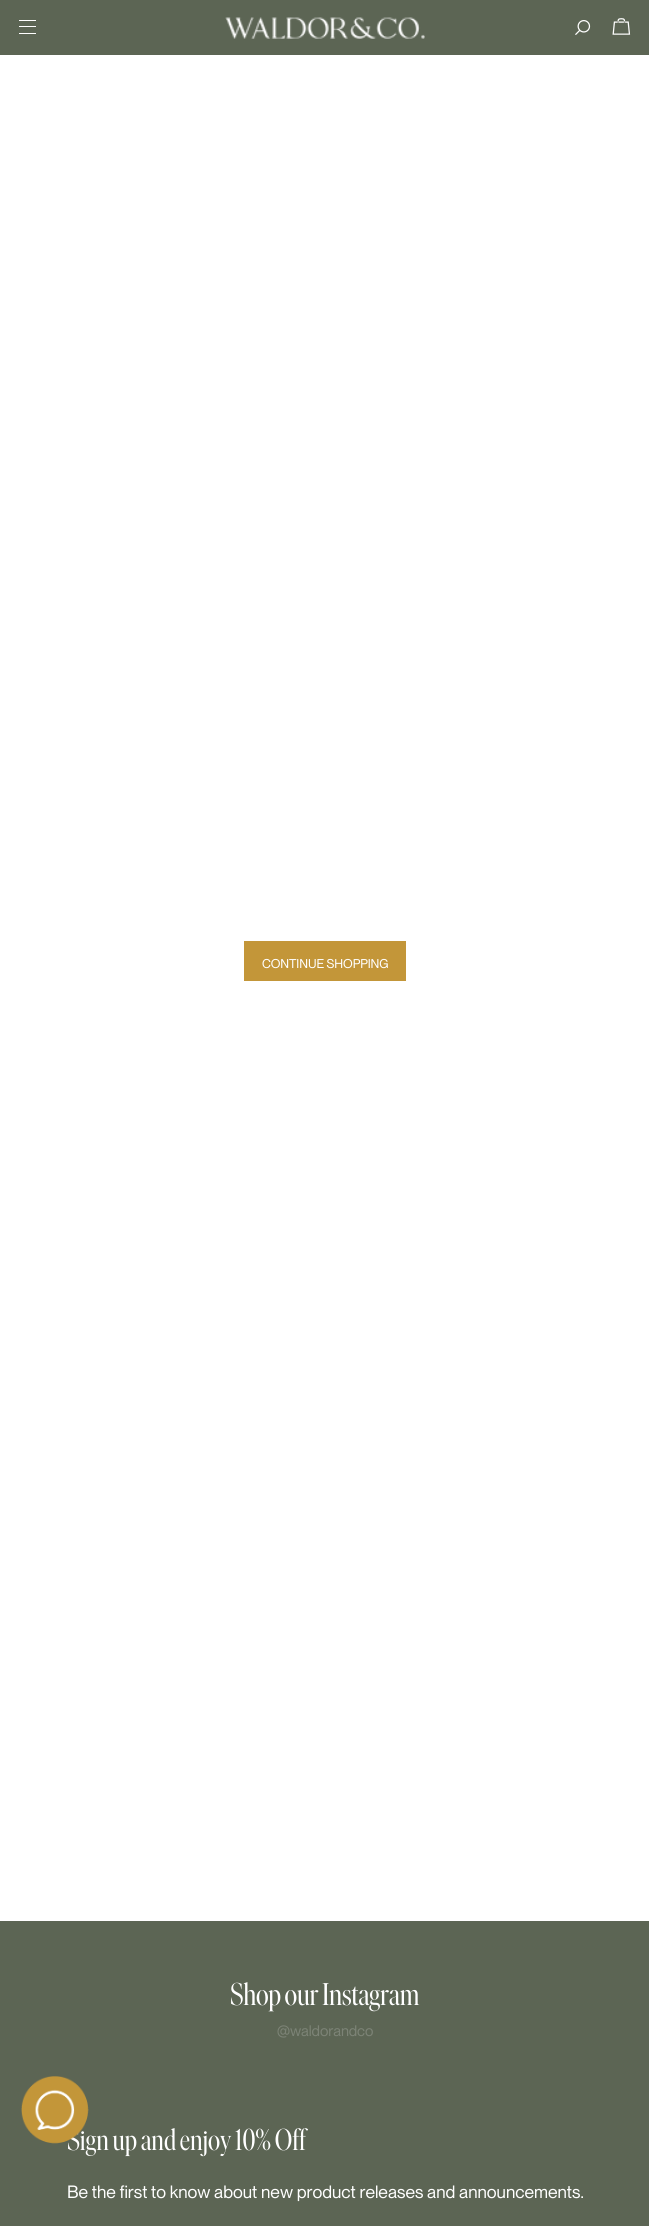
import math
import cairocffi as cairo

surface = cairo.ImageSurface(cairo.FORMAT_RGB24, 649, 2226)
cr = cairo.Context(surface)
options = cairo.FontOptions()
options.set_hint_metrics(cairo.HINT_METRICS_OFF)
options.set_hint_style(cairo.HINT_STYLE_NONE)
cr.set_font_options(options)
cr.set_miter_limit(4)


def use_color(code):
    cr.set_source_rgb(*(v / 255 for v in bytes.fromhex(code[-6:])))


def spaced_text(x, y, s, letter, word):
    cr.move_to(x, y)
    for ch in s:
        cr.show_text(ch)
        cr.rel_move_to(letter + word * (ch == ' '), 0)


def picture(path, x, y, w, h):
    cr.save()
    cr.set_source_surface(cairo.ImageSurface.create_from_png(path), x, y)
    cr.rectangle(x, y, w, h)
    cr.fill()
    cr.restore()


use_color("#ffffff")
cr.paint()
use_color("#5c6554")
cr.rectangle(0, 0, 649, 55)
cr.fill()
use_color("#ffffff")
cr.rectangle(19, 20, 17, 1)
cr.fill()
cr.rectangle(19, 26, 17, 1)
cr.fill()
cr.rectangle(19, 33, 17, 1)
cr.fill()
picture("img1.png", 225, 17, 200, 22)
picture("img2.png", 575, 20, 16, 15)
picture("img3.png", 612, 18, 19, 17)
use_color("#c39639")
cr.rectangle(244, 941, 162, 40)
cr.fill()
cr.select_font_face("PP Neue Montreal")
cr.set_font_size(12.5)
use_color("#ffffff")
spaced_text(262, 968, "CONTINUE SHOPPING", -0.1, 0)
use_color("#5c6554")
cr.rectangle(0, 1921, 649, 305)
cr.fill()
cr.select_font_face("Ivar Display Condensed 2")
cr.set_font_size(30)
use_color("#ffffff")
cr.move_to(67, 2150)
cr.show_text("Sign up and enjoy 10% Off")
picture("img4.png", 21, 2076, 68, 68)
cr.select_font_face("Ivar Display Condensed")
cr.set_font_size(31.25)
spaced_text(230, 2005, "Shop our Instagram", -0.2, 0)
cr.select_font_face("PP Neue Montreal")
cr.set_font_size(15)
use_color("#7c8376")
spaced_text(277, 2036, "@waldorandco", -0.1, 0)
cr.select_font_face("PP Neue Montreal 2")
cr.set_font_size(17.5)
use_color("#ffffff")
cr.move_to(67, 2198)
cr.show_text("Be the first to know about new product releases and announcements.")
surface.write_to_png("result.png")
